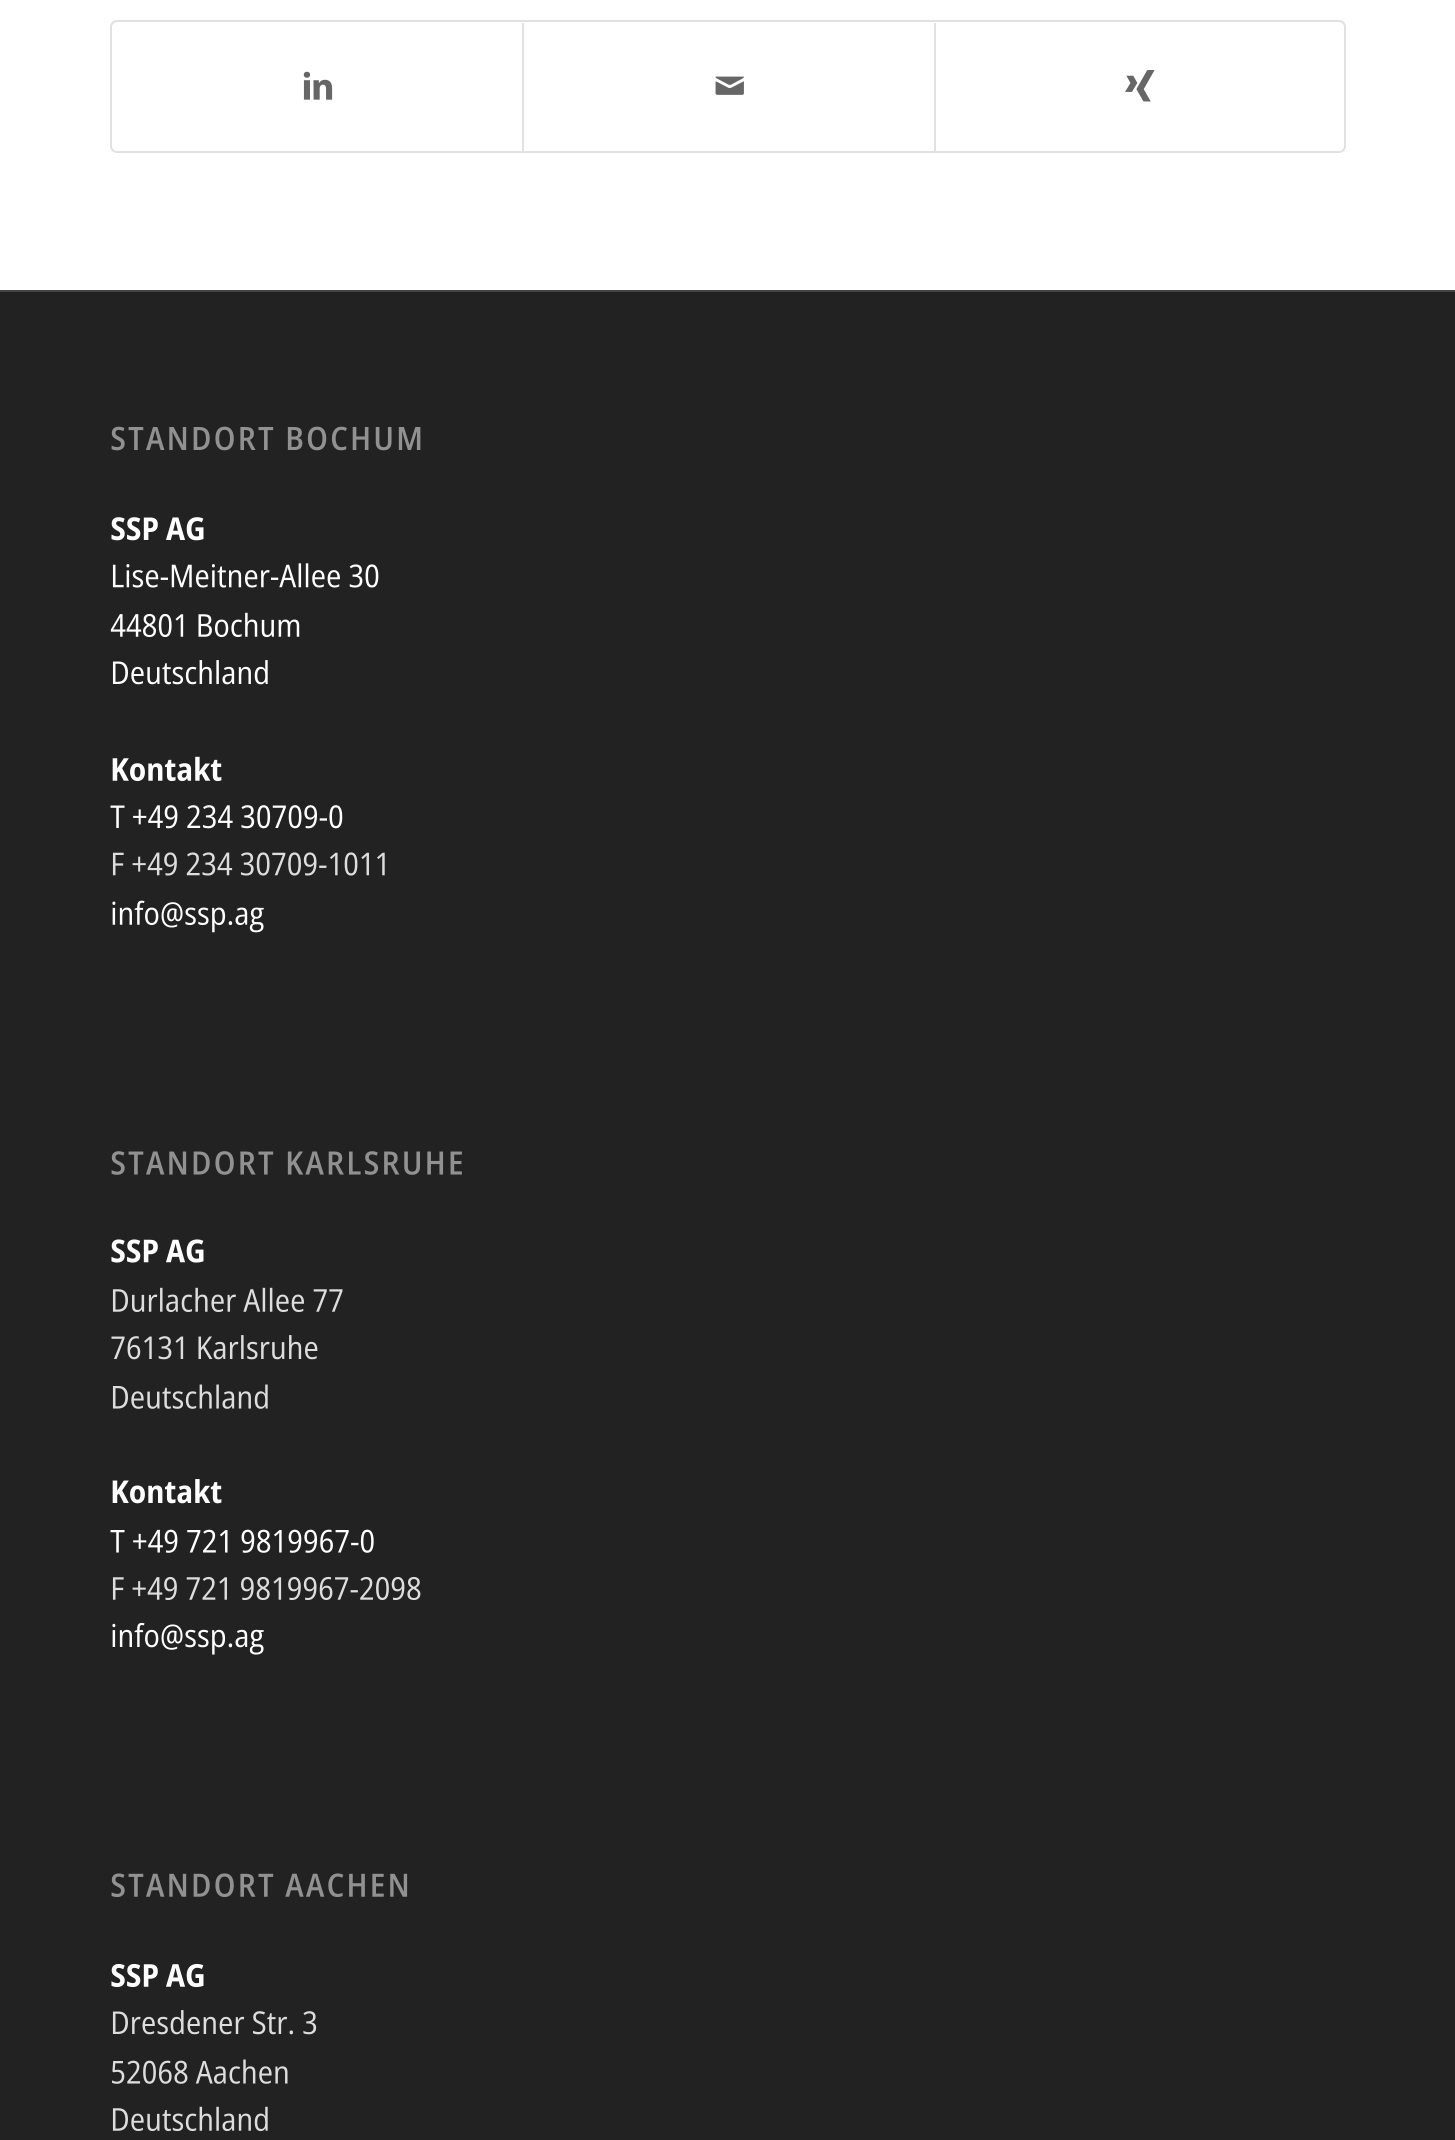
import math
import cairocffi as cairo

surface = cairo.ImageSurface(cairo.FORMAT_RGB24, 1455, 2140)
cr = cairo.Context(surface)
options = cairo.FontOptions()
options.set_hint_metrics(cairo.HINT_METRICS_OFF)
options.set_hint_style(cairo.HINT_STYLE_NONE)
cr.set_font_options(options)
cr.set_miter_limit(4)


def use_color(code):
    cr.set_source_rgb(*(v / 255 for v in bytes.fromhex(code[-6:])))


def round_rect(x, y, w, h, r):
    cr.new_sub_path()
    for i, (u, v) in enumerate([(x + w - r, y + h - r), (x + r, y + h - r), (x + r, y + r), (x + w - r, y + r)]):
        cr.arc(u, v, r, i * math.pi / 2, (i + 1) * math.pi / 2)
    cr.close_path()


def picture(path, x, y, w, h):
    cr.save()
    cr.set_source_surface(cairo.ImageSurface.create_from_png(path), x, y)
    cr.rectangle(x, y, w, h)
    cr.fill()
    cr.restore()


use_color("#ffffff")
cr.paint()
round_rect(111, 21, 1234, 131, 6)
use_color("#e1e1e1")
cr.stroke()
picture("img1.png", 303, 71, 30, 29)
cr.rectangle(522, 23, 2, 128)
cr.fill()
picture("img2.png", 715, 76, 29, 19)
cr.rectangle(934, 23, 2, 128)
cr.fill()
picture("img3.png", 1125, 70, 30, 32)
use_color("#222222")
cr.rectangle(0, 292, 1455, 1848)
cr.fill()
use_color("#444444")
cr.rectangle(0, 290, 1455, 2)
cr.fill()
picture("img4.png", 111, 426, 310, 25)
picture("img5.png", 111, 517, 93, 24)
picture("img6.png", 112, 563, 267, 25)
picture("img7.png", 110, 612, 190, 26)
picture("img8.png", 112, 660, 156, 25)
picture("img9.png", 112, 756, 110, 26)
picture("img10.png", 110, 805, 233, 24)
picture("img11.png", 112, 852, 273, 24)
picture("img12.png", 112, 900, 152, 33)
picture("img13.png", 111, 1151, 351, 24)
picture("img14.png", 111, 1239, 93, 24)
picture("img15.png", 112, 1287, 231, 26)
picture("img16.png", 111, 1335, 207, 25)
picture("img17.png", 112, 1384, 156, 25)
picture("img18.png", 112, 1479, 110, 25)
picture("img19.png", 110, 1529, 264, 24)
picture("img20.png", 112, 1576, 309, 25)
picture("img21.png", 112, 1622, 152, 33)
picture("img22.png", 111, 1873, 297, 25)
picture("img23.png", 111, 1963, 93, 25)
picture("img24.png", 112, 2010, 205, 25)
picture("img25.png", 112, 2059, 176, 25)
picture("img26.png", 112, 2106, 156, 26)
surface.write_to_png("result.png")
